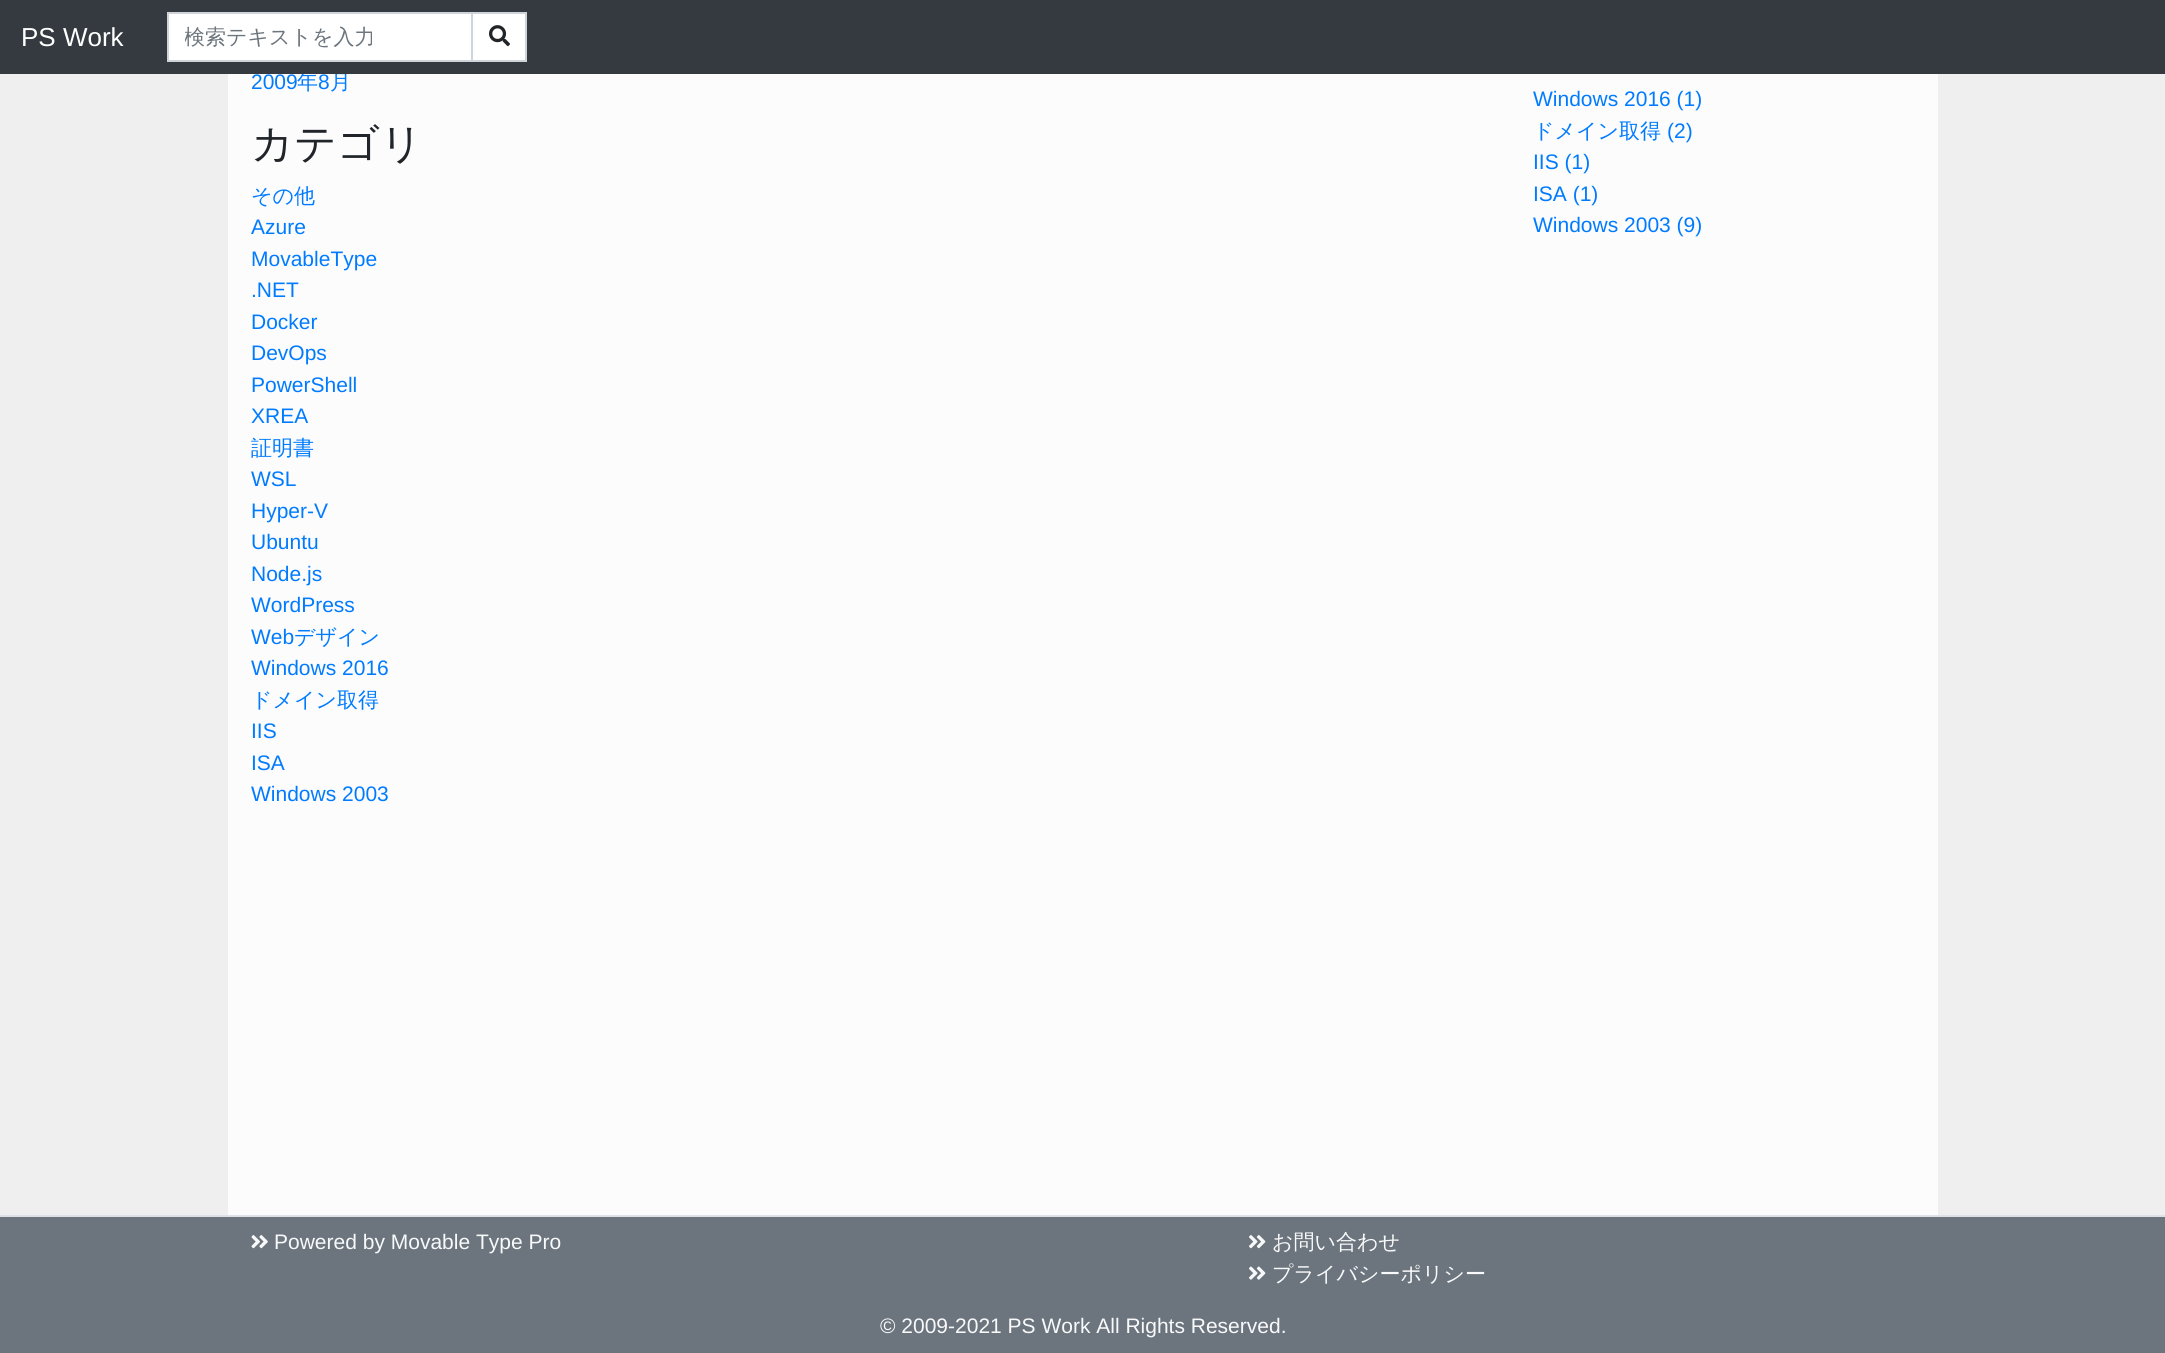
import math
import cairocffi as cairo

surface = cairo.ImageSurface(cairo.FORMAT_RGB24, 2165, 1353)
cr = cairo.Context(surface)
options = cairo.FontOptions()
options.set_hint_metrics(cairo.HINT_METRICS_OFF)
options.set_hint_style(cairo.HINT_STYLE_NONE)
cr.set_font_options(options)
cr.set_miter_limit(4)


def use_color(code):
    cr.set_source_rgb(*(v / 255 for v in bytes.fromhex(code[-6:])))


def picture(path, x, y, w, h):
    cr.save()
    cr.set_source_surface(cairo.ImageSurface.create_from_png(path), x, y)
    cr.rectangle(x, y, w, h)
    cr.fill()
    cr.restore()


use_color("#efefef")
cr.paint()
use_color("#fcfcfc")
cr.rectangle(228, 74, 1710, 1141)
cr.fill()
cr.select_font_face("WenQuanYi Zen Hei Medium")
cr.set_font_size(21)
use_color("#007bff")
cr.move_to(297, 89)
cr.show_text("年")
cr.move_to(330, 89)
cr.show_text("月")
use_color("#343a40")
cr.rectangle(0, 0, 2165, 74)
cr.fill()
cr.select_font_face("Liberation Sans")
cr.set_font_size(26)
use_color("#ffffff")
cr.move_to(21, 46)
cr.show_text("PS Work")
cr.rectangle(168, 13, 304, 48)
cr.fill_preserve()
use_color("#ced4da")
cr.stroke()
cr.save()
cr.rectangle(185, 26, 271, 27)
cr.clip()
cr.select_font_face("WenQuanYi Zen Hei Medium")
cr.set_font_size(21)
use_color("#6c757d")
cr.move_to(184, 44)
cr.show_text("検索テキストを入力")
cr.restore()
use_color("#ffffff")
cr.rectangle(472, 13, 54, 48)
cr.fill_preserve()
use_color("#ced4da")
cr.stroke()
picture("img1.png", 489, 25, 21, 22)
cr.set_font_size(21)
use_color("#007bff")
cr.move_to(251, 89)
cr.show_text("2009")
cr.move_to(318, 89)
cr.show_text("8")
cr.select_font_face("WenQuanYi Zen Hei Medium")
cr.set_font_size(42)
use_color("#212529")
cr.move_to(251, 158)
cr.show_text("カテゴリ")
cr.set_font_size(21)
use_color("#007bff")
cr.move_to(251, 203)
cr.show_text("その他")
cr.select_font_face("Liberation Sans")
cr.move_to(251, 234)
cr.show_text("Azure")
cr.move_to(251, 266)
cr.show_text("MovableType")
cr.move_to(251, 297)
cr.show_text(".NET")
cr.move_to(251, 329)
cr.show_text("Docker")
cr.move_to(251, 360)
cr.show_text("DevOps")
cr.move_to(251, 392)
cr.show_text("PowerShell")
cr.move_to(251, 423)
cr.show_text("XREA")
cr.select_font_face("WenQuanYi Zen Hei Medium")
cr.move_to(251, 455)
cr.show_text("証明書")
cr.select_font_face("Liberation Sans")
cr.move_to(251, 486)
cr.show_text("WSL")
cr.move_to(251, 518)
cr.show_text("Hyper-V")
cr.move_to(251, 549)
cr.show_text("Ubuntu")
cr.move_to(251, 581)
cr.show_text("Node.js")
cr.move_to(251, 612)
cr.show_text("WordPress")
cr.move_to(251, 644)
cr.show_text("Web")
cr.select_font_face("WenQuanYi Zen Hei Medium")
cr.move_to(294, 644)
cr.show_text("デザイン")
cr.select_font_face("Liberation Sans")
cr.move_to(251, 675)
cr.show_text("Windows 2016")
cr.select_font_face("WenQuanYi Zen Hei Medium")
cr.move_to(251, 707)
cr.show_text("ドメイン取得")
cr.select_font_face("Liberation Sans")
cr.move_to(251, 738)
cr.show_text("IIS")
cr.move_to(251, 770)
cr.show_text("ISA")
cr.move_to(251, 801)
cr.show_text("Windows 2003")
cr.move_to(1533, 106)
cr.show_text("Windows 2016 (1)")
cr.select_font_face("WenQuanYi Zen Hei Medium")
cr.move_to(1533, 138)
cr.show_text("ドメイン取得")
cr.select_font_face("Liberation Sans")
cr.move_to(1667, 138)
cr.show_text("(2)")
cr.move_to(1533, 169)
cr.show_text("IIS (1)")
cr.move_to(1533, 201)
cr.show_text("ISA (1)")
cr.move_to(1533, 232)
cr.show_text("Windows 2003 (9)")
use_color("#6c757d")
cr.rectangle(0, 1217, 2165, 136)
cr.fill()
use_color("#dee2e6")
cr.rectangle(0, 1215, 2165, 2)
cr.fill()
picture("img2.png", 251, 1235, 17, 14)
use_color("#f8f9fa")
cr.move_to(274, 1249)
cr.show_text("Powered by Movable Type Pro")
picture("img3.png", 1249, 1235, 17, 14)
cr.select_font_face("WenQuanYi Zen Hei Medium")
cr.move_to(1272, 1249)
cr.show_text("お問い合わせ")
picture("img4.png", 1249, 1266, 17, 14)
cr.move_to(1272, 1281)
cr.show_text("プライバシーポリシー")
cr.select_font_face("Liberation Sans")
cr.move_to(880, 1333)
cr.show_text("© 2009-2021 PS Work All Rights Reserved.")
surface.write_to_png("result.png")
